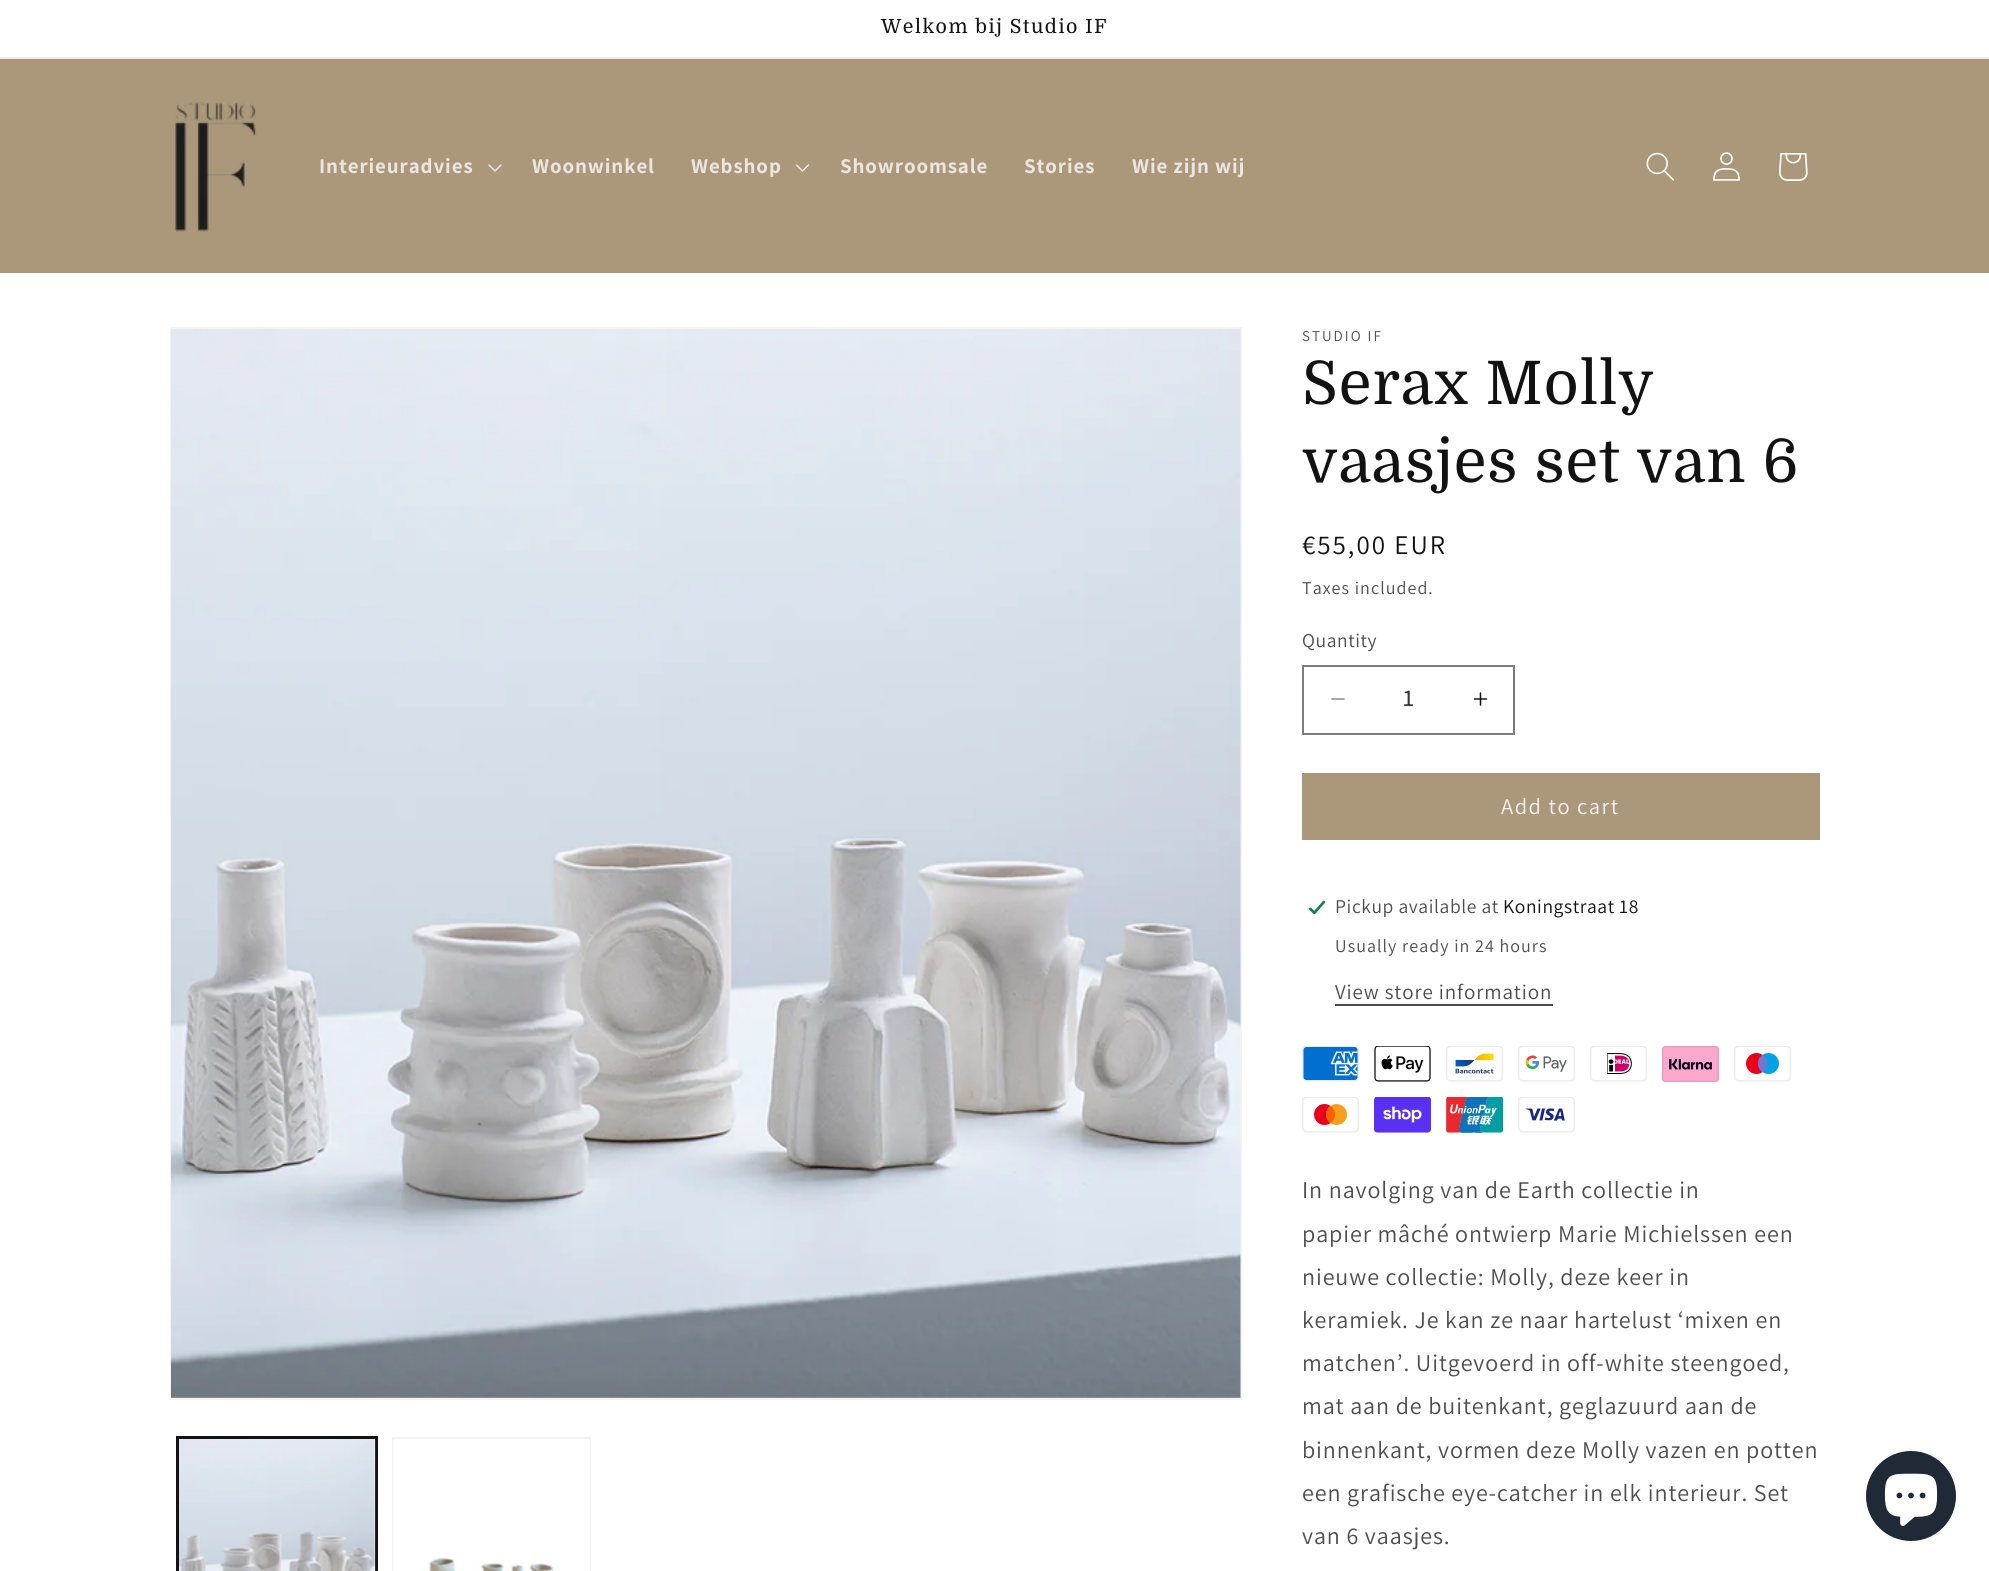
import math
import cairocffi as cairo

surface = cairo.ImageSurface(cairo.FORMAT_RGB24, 1989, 1571)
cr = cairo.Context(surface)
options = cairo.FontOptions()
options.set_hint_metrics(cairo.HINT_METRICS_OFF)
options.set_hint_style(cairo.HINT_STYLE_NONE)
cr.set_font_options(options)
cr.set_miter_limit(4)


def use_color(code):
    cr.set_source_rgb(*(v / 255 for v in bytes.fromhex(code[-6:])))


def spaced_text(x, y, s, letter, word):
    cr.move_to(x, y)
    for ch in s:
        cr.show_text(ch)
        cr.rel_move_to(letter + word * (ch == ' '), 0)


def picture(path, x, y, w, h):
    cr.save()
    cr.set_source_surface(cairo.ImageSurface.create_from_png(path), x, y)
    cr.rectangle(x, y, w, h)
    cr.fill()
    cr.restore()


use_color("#ffffff")
cr.paint()
use_color("#ececec")
cr.rectangle(0, 57, 1989, 2)
cr.fill()
cr.select_font_face("Domine")
cr.set_font_size(19.5)
use_color("#121212")
spaced_text(881, 33, "Welkom bij Studio IF", 1.5, 0)
use_color("#ab987a")
cr.rectangle(0, 59, 1989, 214)
cr.fill()
picture("img1.png", 175, 102, 82, 130)
cr.select_font_face("Assistant", cairo.FONT_SLANT_NORMAL, cairo.FONT_WEIGHT_BOLD)
cr.set_font_size(21)
use_color("#eae5de")
spaced_text(319, 173, "Interieuradvies", 0.9, 0)
picture("img2.png", 488, 164, 14, 8)
spaced_text(532, 173, "Woonwinkel", 0.9, 0)
spaced_text(691, 173, "Webshop", 0.9, 0)
picture("img3.png", 795, 164, 15, 8)
spaced_text(840, 173, "Showroomsale", 0.9, 0)
spaced_text(1024, 173, "Stories", 0.9, 0)
spaced_text(1132, 173, "Wie zijn wij", 0.9, 0)
picture("img4.png", 1646, 152, 28, 29)
picture("img5.png", 1713, 152, 27, 29)
picture("img6.png", 1779, 153, 29, 28)
cr.rectangle(171, 328, 1070, 1071)
use_color("#f3f3f3")
cr.stroke()
picture("img7.png", 171, 329, 1070, 1069)
cr.rectangle(177, 1437, 200, 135)
use_color("#121212")
cr.stroke()
cr.rectangle(178, 1438, 198, 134)
cr.stroke()
picture("img8.png", 179, 1439, 197, 132)
cr.rectangle(393, 1438, 197, 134)
use_color("#f3f3f3")
cr.stroke()
picture("img9.png", 393, 1439, 197, 132)
cr.select_font_face("Assistant")
cr.set_font_size(15)
use_color("#4d4d4d")
spaced_text(1302, 341, "STUDIO IF", 2, 0)
cr.select_font_face("Domine")
cr.set_font_size(60)
use_color("#121212")
spaced_text(1302, 404, "Serax Molly", 0.9, 0)
spaced_text(1302, 482, "vaasjes set van 6", 0.9, 0)
cr.select_font_face("Assistant")
cr.set_font_size(27)
spaced_text(1302, 554, "€55,00 EUR", 2, 0)
cr.set_font_size(18)
use_color("#4d4d4d")
spaced_text(1302, 594, "Taxes included.", 1.05, 0)
cr.set_font_size(19.5)
spaced_text(1302, 647, "Quantity", 0.6, 0)
picture("img10.png", 1331, 698, 14, 2)
picture("img11.png", 1473, 692, 15, 14)
cr.rectangle(1303, 666, 211, 68)
use_color("#7d7d7d")
cr.stroke()
cr.select_font_face("Assistant Medium")
cr.set_font_size(24)
use_color("#363636")
cr.move_to(1403, 706)
cr.show_text("1")
use_color("#ab987a")
cr.rectangle(1302, 773, 518, 67)
cr.fill()
cr.select_font_face("Assistant")
cr.set_font_size(22.5)
use_color("#f9f1f1")
spaced_text(1501, 814, "Add to cart", 1.5, 0)
picture("img12.png", 1308, 900, 18, 15)
cr.set_font_size(19.5)
use_color("#4d4d4d")
spaced_text(1335, 913, "Pickup available at", 0.6, 0)
use_color("#121212")
spaced_text(1503, 913, "Koningstraat 18", 0.6, 0)
cr.set_font_size(18)
use_color("#4d4d4d")
spaced_text(1335, 952, "Usually ready in 24 hours", 1.05, 0)
cr.set_font_size(21)
spaced_text(1335, 999, "View store information", 0.9, 0)
cr.rectangle(1335, 1004, 218, 2)
cr.fill()
picture("img13.png", 1302, 1046, 57, 36)
picture("img14.png", 1374, 1046, 57, 36)
picture("img15.png", 1446, 1046, 57, 36)
picture("img16.png", 1518, 1046, 57, 36)
picture("img17.png", 1590, 1046, 57, 36)
picture("img18.png", 1662, 1046, 57, 36)
picture("img19.png", 1734, 1046, 57, 36)
picture("img20.png", 1302, 1097, 57, 36)
picture("img21.png", 1374, 1097, 57, 36)
picture("img22.png", 1446, 1097, 57, 36)
picture("img23.png", 1518, 1097, 57, 36)
cr.set_font_size(24)
spaced_text(1302, 1198, "In navolging van de Earth collectie in", 0.9, 0)
spaced_text(1302, 1242, "papier mâché ontwierp Marie Michielssen een", 0.9, 0)
spaced_text(1302, 1285, "nieuwe collectie: Molly, deze keer in", 0.9, 0)
spaced_text(1302, 1328, "keramiek. Je kan ze naar hartelust ‘mixen en", 0.9, 0)
spaced_text(1302, 1371, "matchen’. Uitgevoerd in off-white steengoed,", 0.9, 0)
spaced_text(1302, 1414, "mat aan de buitenkant, geglazuurd aan de", 0.9, 0)
spaced_text(1302, 1458, "binnenkant, vormen deze Molly vazen en potten", 0.9, 0)
spaced_text(1302, 1501, "een grafische eye-catcher in elk interieur. Set", 0.9, 0)
spaced_text(1302, 1544, "van 6 vaasjes.", 0.9, 0)
use_color("#202a36")
cr.new_path()
cr.arc(1911, 1496, 45, 0, 2 * math.pi)
cr.fill()
picture("img24.png", 1884, 1473, 54, 53)
surface.write_to_png("result.png")
